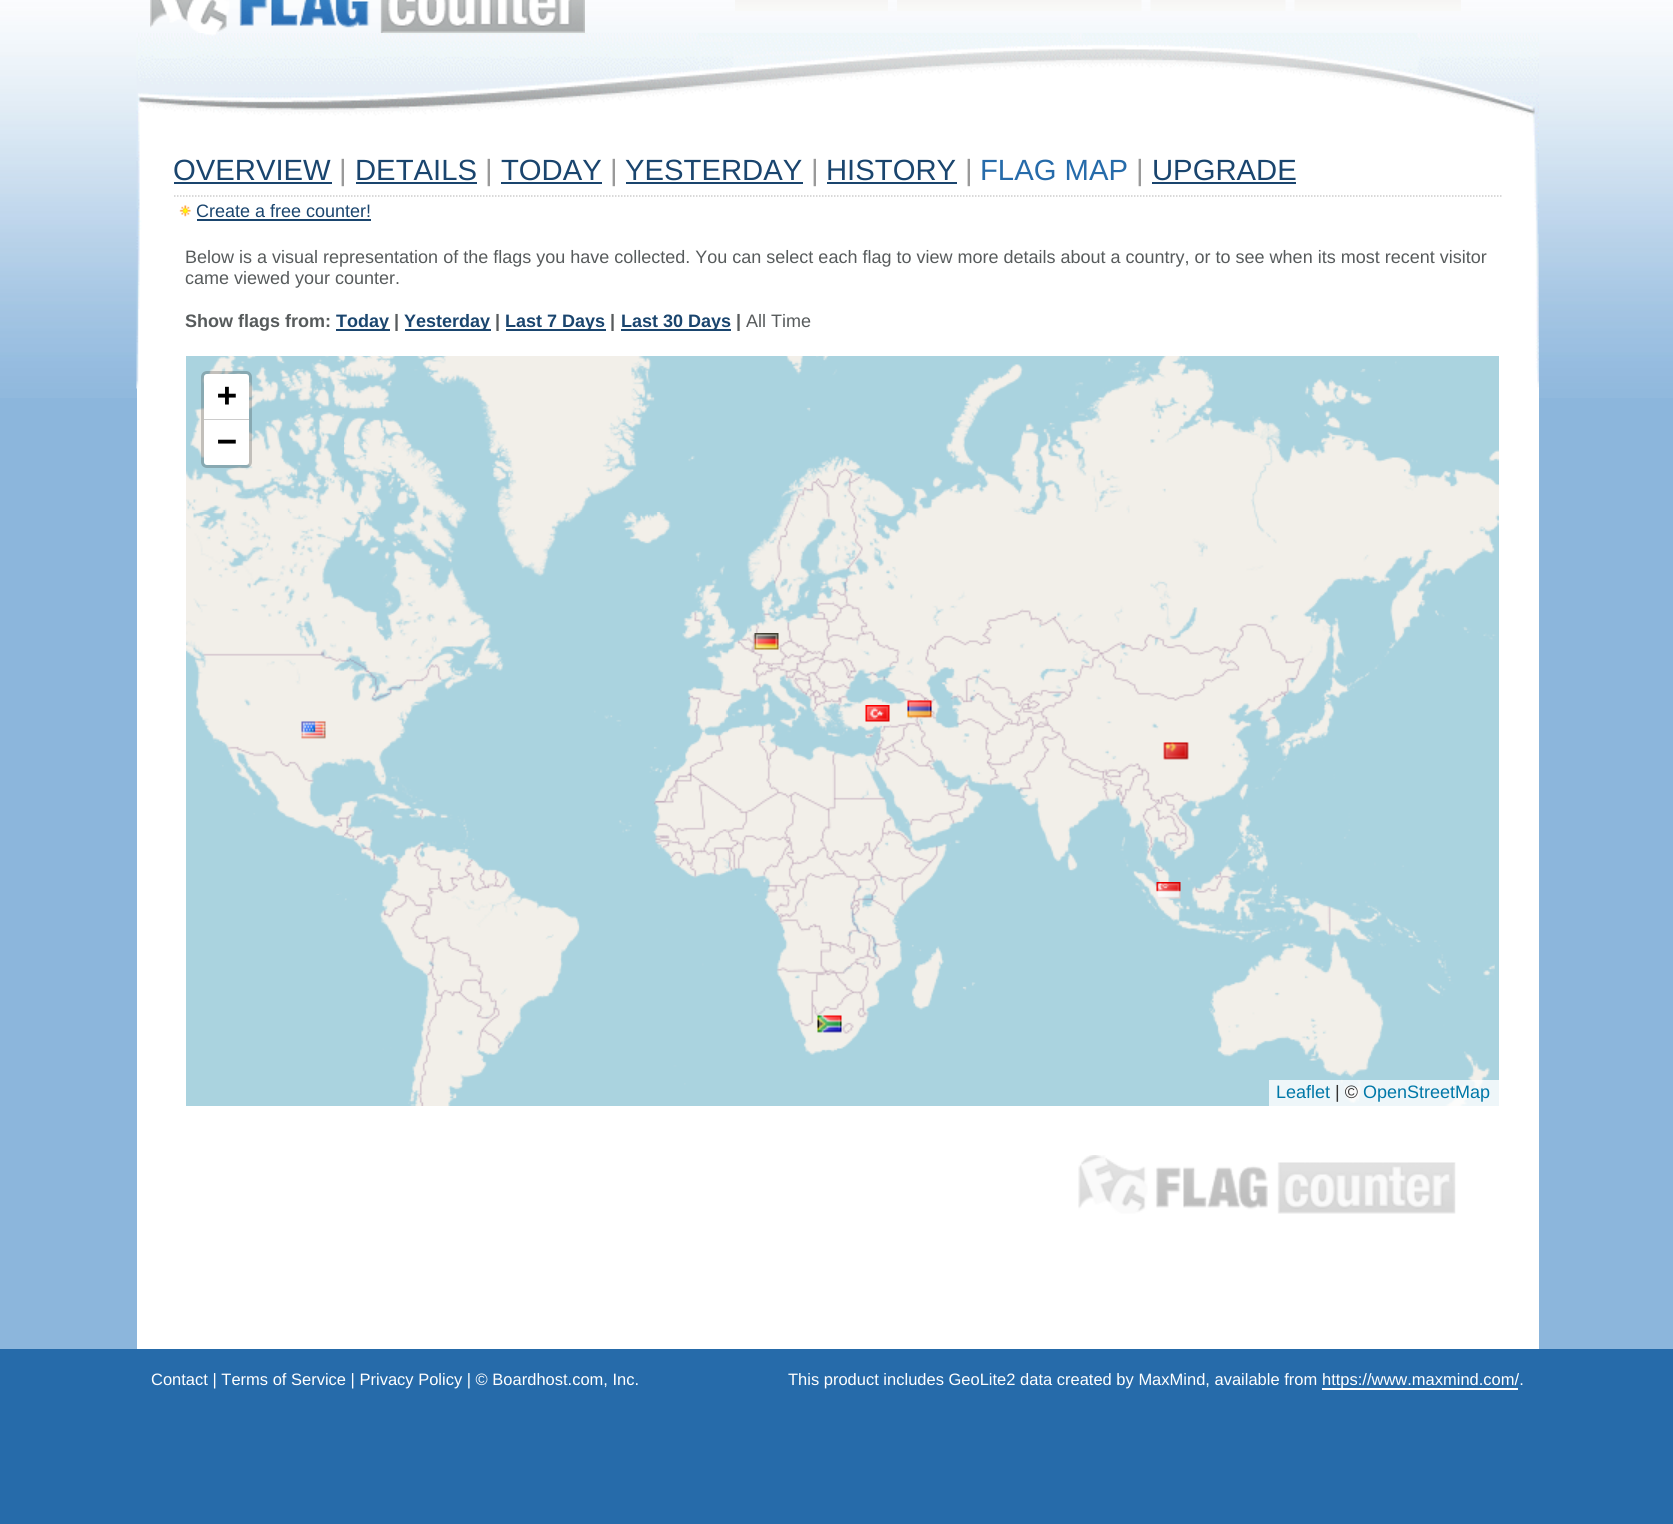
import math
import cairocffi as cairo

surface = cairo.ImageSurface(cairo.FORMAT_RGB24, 1673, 1524)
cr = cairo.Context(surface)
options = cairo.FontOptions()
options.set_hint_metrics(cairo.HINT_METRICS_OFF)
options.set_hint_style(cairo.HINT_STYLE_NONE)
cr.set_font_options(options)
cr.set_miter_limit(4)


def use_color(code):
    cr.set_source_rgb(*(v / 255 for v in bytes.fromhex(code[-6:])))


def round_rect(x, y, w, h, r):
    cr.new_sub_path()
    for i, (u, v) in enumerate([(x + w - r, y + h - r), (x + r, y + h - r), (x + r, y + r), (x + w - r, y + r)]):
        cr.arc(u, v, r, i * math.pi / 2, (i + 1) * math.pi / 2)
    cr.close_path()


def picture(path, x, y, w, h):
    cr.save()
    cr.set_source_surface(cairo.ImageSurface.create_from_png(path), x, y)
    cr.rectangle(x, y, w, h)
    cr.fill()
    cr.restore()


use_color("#8cb6dc")
cr.paint()
picture("img1.png", 0, 0, 1673, 398)
picture("img2.png", 150, 0, 435, 33)
picture("img3.png", 735, 0, 153, 11)
picture("img4.png", 897, 0, 245, 11)
picture("img5.png", 1150, 0, 136, 11)
picture("img6.png", 1294, 0, 167, 11)
use_color("#ffffff")
cr.rectangle(137, 388, 1402, 961)
cr.fill()
picture("img7.png", 136, 33, 1403, 356)
cr.new_path()
cr.move_to(174, 196)
cr.line_to(1501.5, 196)
use_color("#cccccc")
cr.set_line_width(1.5)
cr.set_dash([1.5, 1.5])
cr.stroke()
cr.select_font_face("Liberation Sans")
cr.set_font_size(29.25)
use_color("#1a456e")
cr.move_to(173, 180)
cr.show_text("OVERVIEW")
cr.rectangle(174, 182, 158, 2)
cr.fill()
use_color("#999999")
cr.move_to(339, 180)
cr.show_text("|")
use_color("#1a456e")
cr.move_to(355, 180)
cr.show_text("DETAILS")
cr.rectangle(356, 182, 121, 2)
cr.fill()
use_color("#999999")
cr.move_to(485, 180)
cr.show_text("|")
use_color("#1a456e")
cr.move_to(501, 180)
cr.show_text("TODAY")
cr.rectangle(501, 182, 101, 2)
cr.fill()
use_color("#999999")
cr.move_to(610, 180)
cr.show_text("|")
use_color("#1a456e")
cr.move_to(625, 180)
cr.show_text("YESTERDAY")
cr.rectangle(626, 182, 177, 2)
cr.fill()
use_color("#999999")
cr.move_to(811, 180)
cr.show_text("|")
use_color("#1a456e")
cr.move_to(826, 180)
cr.show_text("HISTORY")
cr.rectangle(827, 182, 130, 2)
cr.fill()
use_color("#999999")
cr.move_to(965, 180)
cr.show_text("|")
use_color("#266baa")
cr.move_to(980, 180)
cr.show_text("FLAG MAP")
use_color("#999999")
cr.move_to(1136, 180)
cr.show_text("|")
use_color("#1a456e")
cr.move_to(1152, 180)
cr.show_text("UPGRADE")
cr.rectangle(1152, 182, 144, 2)
cr.fill()
picture("img8.png", 179, 205, 12, 12)
cr.set_font_size(18)
cr.move_to(196, 217)
cr.show_text("Create a free counter!")
cr.rectangle(197, 219, 174, 2)
cr.fill()
use_color("#575b5c")
cr.move_to(185, 263)
cr.show_text("Below is a visual representation of the flags you have collected. You can select each flag to view more details about a country, or to see when its most recent visitor")
cr.move_to(185, 284)
cr.show_text("came viewed your counter.")
cr.select_font_face("Liberation Sans", cairo.FONT_SLANT_NORMAL, cairo.FONT_WEIGHT_BOLD)
cr.move_to(185, 327)
cr.show_text("Show flags from:")
use_color("#1a456e")
cr.rectangle(336, 329, 54, 2)
cr.fill()
cr.move_to(336, 327)
cr.show_text("Today")
use_color("#575b5c")
cr.move_to(394, 327)
cr.show_text("|")
use_color("#1a456e")
cr.rectangle(405, 329, 86, 2)
cr.fill()
cr.move_to(404, 327)
cr.show_text("Yesterday")
use_color("#575b5c")
cr.move_to(495, 327)
cr.show_text("|")
use_color("#1a456e")
cr.rectangle(506, 329, 100, 2)
cr.fill()
cr.move_to(505, 327)
cr.show_text("Last 7 Days")
use_color("#575b5c")
cr.move_to(610, 327)
cr.show_text("|")
use_color("#1a456e")
cr.rectangle(621, 329, 110, 2)
cr.fill()
cr.move_to(621, 327)
cr.show_text("Last 30 Days")
use_color("#575b5c")
cr.move_to(736, 327)
cr.show_text("|")
cr.select_font_face("Liberation Sans")
cr.move_to(746, 327)
cr.show_text("All Time")
picture("img9.png", 186, 356, 158, 156)
picture("img10.png", 344, 356, 384, 156)
picture("img11.png", 728, 356, 384, 156)
picture("img16.png", 728, 512, 384, 384)
picture("img17.png", 1111, 511, 385, 385)
picture("img12.png", 1111, 356, 385, 156)
picture("img21.png", 1112, 895, 384, 211)
picture("img18.png", 1495, 511, 4, 385)
picture("img13.png", 1495, 356, 4, 156)
picture("img14.png", 186, 512, 158, 383)
picture("img15.png", 344, 512, 384, 384)
use_color("#aad3df")
cr.rectangle(186, 895, 158, 211)
cr.fill()
picture("img20.png", 727, 895, 385, 211)
picture("img19.png", 344, 895, 384, 211)
cr.rectangle(1495, 896, 4, 210)
cr.fill()
picture("img22.png", 754, 633, 25, 17)
picture("img23.png", 865, 705, 25, 17)
picture("img24.png", 907, 700, 25, 18)
picture("img25.png", 301, 721, 25, 18)
picture("img26.png", 1163, 742, 26, 18)
picture("img27.png", 1156, 882, 25, 17)
picture("img28.png", 817, 1015, 25, 18)
round_rect(202.5, 372.5, 48, 94, 4.5)
cr.set_source_rgba(0, 0, 0, 0.2)
cr.set_line_width(3)
cr.set_dash([])
cr.stroke()
use_color("#ffffff")
cr.new_path()
cr.move_to(207, 374)
cr.line_to(246, 374)
cr.curve_to(247.5, 374, 249, 375.5, 249, 377)
cr.line_to(249, 420)
cr.line_to(204, 420)
cr.line_to(204, 377)
cr.curve_to(204, 375.5, 205.5, 374, 207, 374)
cr.close_path()
cr.fill()
use_color("#cccccc")
cr.rectangle(204, 419, 45, 1)
cr.fill()
cr.select_font_face("DejaVu Sans Mono", cairo.FONT_SLANT_NORMAL, cairo.FONT_WEIGHT_BOLD)
cr.set_font_size(33)
use_color("#000000")
cr.move_to(217, 406)
cr.show_text("+")
use_color("#ffffff")
cr.new_path()
cr.move_to(204, 420)
cr.line_to(249, 420)
cr.line_to(249, 462)
cr.curve_to(249, 463.5, 247.5, 465, 246, 465)
cr.line_to(207, 465)
cr.curve_to(205.5, 465, 204, 463.5, 204, 462)
cr.close_path()
cr.fill()
use_color("#000000")
cr.move_to(217, 452)
cr.show_text("−")
cr.set_source_rgba(1, 1, 1, 0.8)
cr.rectangle(1269, 1080, 230, 26)
cr.fill()
cr.select_font_face("Liberation Sans")
cr.set_font_size(18)
use_color("#0078a8")
cr.move_to(1276, 1098)
cr.show_text("Leaflet")
use_color("#333333")
cr.move_to(1335, 1098)
cr.show_text("| ©")
use_color("#0078a8")
cr.move_to(1363, 1098)
cr.show_text("OpenStreetMap")
picture("img29.png", 1078, 1155, 378, 59)
use_color("#266baa")
cr.rectangle(0, 1349, 1673, 175)
cr.fill()
cr.set_font_size(16.5)
use_color("#ffffff")
cr.move_to(151, 1385)
cr.show_text("Contact | Terms of Service | Privacy Policy | © Boardhost.com, Inc.")
cr.move_to(788, 1385)
cr.show_text("This product includes GeoLite2 data created by MaxMind, available from")
cr.rectangle(1322, 1388, 196, 2)
cr.fill()
cr.move_to(1322, 1385)
cr.show_text("https://www.maxmind.com/.")
surface.write_to_png("result.png")
